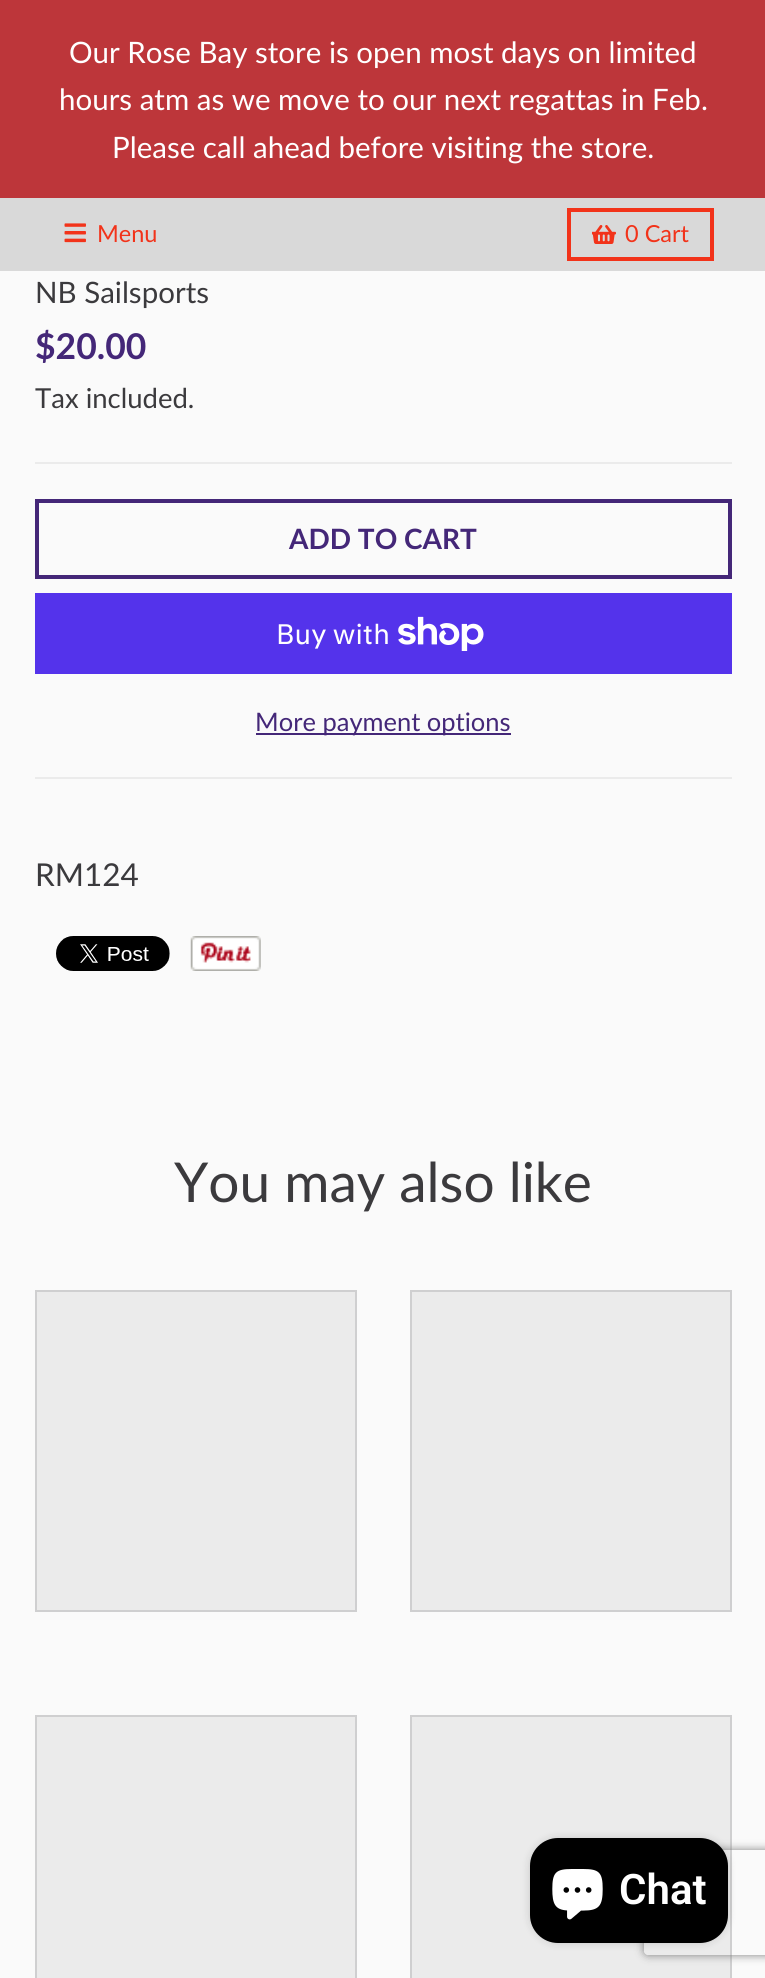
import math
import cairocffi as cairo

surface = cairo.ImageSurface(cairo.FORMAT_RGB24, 765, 1978)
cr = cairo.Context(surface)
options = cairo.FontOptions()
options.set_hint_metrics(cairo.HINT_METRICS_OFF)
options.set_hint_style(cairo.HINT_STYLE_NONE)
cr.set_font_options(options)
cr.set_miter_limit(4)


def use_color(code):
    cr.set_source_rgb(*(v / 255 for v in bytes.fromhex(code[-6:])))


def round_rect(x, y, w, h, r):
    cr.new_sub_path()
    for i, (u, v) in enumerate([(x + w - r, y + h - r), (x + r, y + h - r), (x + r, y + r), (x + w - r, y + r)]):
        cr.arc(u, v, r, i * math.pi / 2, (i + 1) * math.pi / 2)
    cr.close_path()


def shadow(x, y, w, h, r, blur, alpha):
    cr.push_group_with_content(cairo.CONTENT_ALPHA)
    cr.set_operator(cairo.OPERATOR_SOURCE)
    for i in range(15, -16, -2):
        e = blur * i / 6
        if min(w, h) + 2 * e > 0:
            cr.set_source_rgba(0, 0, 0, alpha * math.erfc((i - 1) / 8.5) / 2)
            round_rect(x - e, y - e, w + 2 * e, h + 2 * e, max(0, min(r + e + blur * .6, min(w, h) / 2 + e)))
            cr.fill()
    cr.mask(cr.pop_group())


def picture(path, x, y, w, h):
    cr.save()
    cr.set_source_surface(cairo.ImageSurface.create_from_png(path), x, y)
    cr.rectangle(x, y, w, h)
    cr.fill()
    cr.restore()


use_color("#fafafa")
cr.paint()
use_color("#bd363a")
cr.rectangle(0, 0, 765, 198)
cr.fill()
cr.select_font_face("Lato")
cr.set_font_size(29.5)
use_color("#ffffff")
cr.move_to(69, 63)
cr.show_text("Our Rose Bay store is open most days on limited")
cr.move_to(59, 110)
cr.show_text("hours atm as we move to our next regattas in Feb.")
cr.move_to(112, 158)
cr.show_text("Please call ahead before visiting the store.")
use_color("#d9d9d9")
cr.rectangle(0, 198, 765, 73)
cr.fill()
picture("img1.png", 64, 223, 22, 20)
cr.set_font_size(23.5)
use_color("#f2331a")
cr.move_to(97, 242)
cr.show_text("Menu")
cr.rectangle(569, 210, 143, 49)
cr.set_line_width(4)
cr.stroke()
picture("img2.png", 592, 225, 24, 19)
cr.move_to(625, 242)
cr.show_text("0 Cart")
use_color("#ebebeb")
cr.rectangle(35, 777, 697, 2)
cr.fill()
cr.set_font_size(29.5)
use_color("#3b3a3d")
cr.move_to(35, 303)
cr.show_text("NB Sailsports")
use_color("#ebebeb")
cr.rectangle(35, 462, 697, 2)
cr.fill()
cr.select_font_face("Lato", cairo.FONT_SLANT_NORMAL, cairo.FONT_WEIGHT_BOLD)
cr.set_font_size(35.5)
use_color("#442778")
cr.move_to(35, 359)
cr.show_text("$20.00")
cr.select_font_face("Lato")
cr.set_font_size(27.5)
use_color("#3b3a3d")
cr.move_to(35, 408)
cr.show_text("Tax included.")
cr.rectangle(37, 501, 693, 76)
use_color("#442778")
cr.stroke()
cr.select_font_face("Lato", cairo.FONT_SLANT_NORMAL, cairo.FONT_WEIGHT_BOLD)
cr.set_font_size(28)
cr.move_to(289, 549)
cr.show_text("ADD TO CART")
use_color("#5433eb")
cr.rectangle(35, 593, 697, 81)
cr.fill()
cr.select_font_face("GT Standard")
use_color("#ffffff")
cr.move_to(276, 644)
cr.show_text("Buy with")
picture("img3.png", 398, 616, 86, 35)
use_color("#442778")
cr.rectangle(256, 733, 255, 2)
cr.fill()
cr.select_font_face("Lato")
cr.set_font_size(25.5)
cr.move_to(255, 731)
cr.show_text("More payment options")
cr.set_font_size(31.5)
use_color("#3b3a3d")
cr.move_to(35, 886)
cr.show_text("RM124")
picture("img4.png", 56, 936, 114, 35)
picture("img5.png", 190, 936, 71, 35)
cr.set_font_size(55)
cr.move_to(174, 1202)
cr.show_text("You may also like")
use_color("#ebebeb")
cr.rectangle(36, 1291, 320, 320)
cr.fill_preserve()
use_color("#cfcfd0")
cr.set_line_width(2)
cr.stroke()
use_color("#ebebeb")
cr.rectangle(411, 1291, 320, 320)
cr.fill_preserve()
use_color("#cfcfd0")
cr.stroke()
use_color("#ebebeb")
cr.rectangle(36, 1716, 320, 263)
cr.fill_preserve()
use_color("#cfcfd0")
cr.stroke()
use_color("#ebebeb")
cr.rectangle(411, 1716, 320, 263)
cr.fill_preserve()
use_color("#cfcfd0")
cr.stroke()
cr.save()
cr.set_fill_rule(cairo.FILL_RULE_EVEN_ODD)
cr.new_path()
cr.move_to(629, 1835)
cr.line_to(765, 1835)
cr.line_to(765, 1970)
cr.line_to(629, 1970)
cr.close_path()
cr.move_to(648, 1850)
cr.line_to(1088, 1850)
cr.curve_to(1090, 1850, 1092, 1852, 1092, 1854)
cr.line_to(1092, 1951)
cr.curve_to(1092, 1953, 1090, 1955, 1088, 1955)
cr.line_to(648, 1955)
cr.curve_to(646, 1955, 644, 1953, 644, 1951)
cr.line_to(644, 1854)
cr.curve_to(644, 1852, 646, 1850, 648, 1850)
cr.close_path()
cr.clip()
use_color("#808080")
shadow(644, 1850, 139, 105, 4, 4.5, 1)
cr.restore()
use_color("#000000")
shadow(530, 1838, 198, 105, 28, 4.5, 0.15)
use_color("#000000")
round_rect(530, 1838, 198, 105, 28)
cr.fill()
picture("img6.png", 552, 1869, 51, 51)
cr.select_font_face("Roboto SemiBold")
cr.set_font_size(42)
use_color("#ffffff")
cr.move_to(619, 1904)
cr.show_text("Chat")
surface.write_to_png("result.png")
